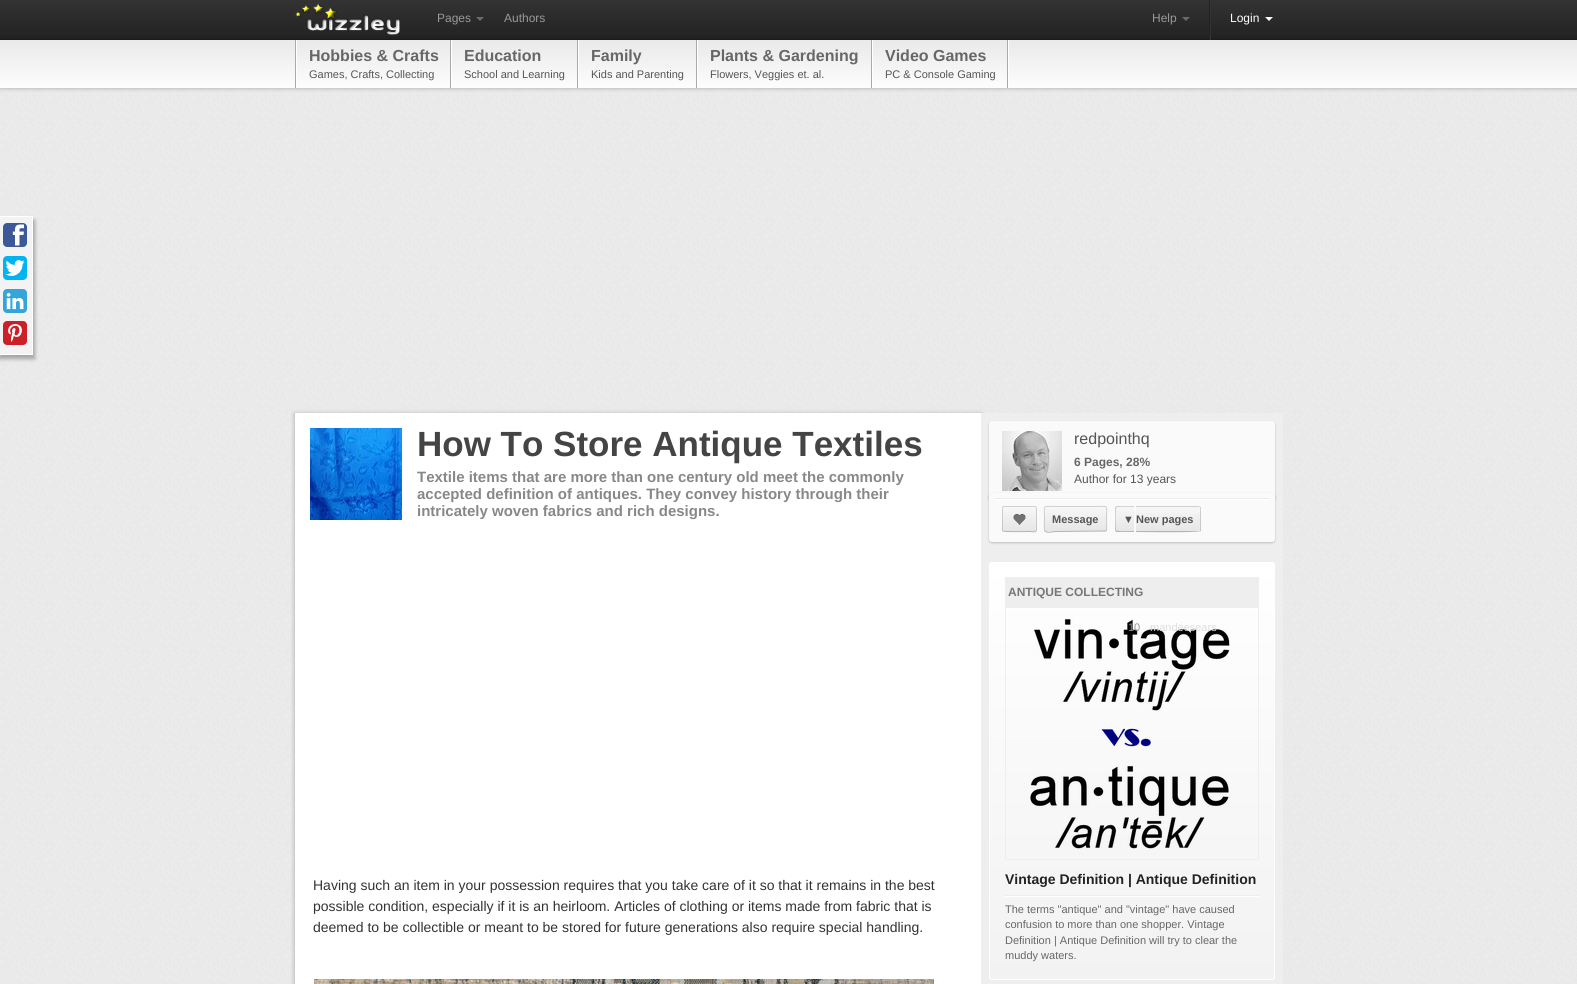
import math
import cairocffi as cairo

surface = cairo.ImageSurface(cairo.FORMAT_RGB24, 1577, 984)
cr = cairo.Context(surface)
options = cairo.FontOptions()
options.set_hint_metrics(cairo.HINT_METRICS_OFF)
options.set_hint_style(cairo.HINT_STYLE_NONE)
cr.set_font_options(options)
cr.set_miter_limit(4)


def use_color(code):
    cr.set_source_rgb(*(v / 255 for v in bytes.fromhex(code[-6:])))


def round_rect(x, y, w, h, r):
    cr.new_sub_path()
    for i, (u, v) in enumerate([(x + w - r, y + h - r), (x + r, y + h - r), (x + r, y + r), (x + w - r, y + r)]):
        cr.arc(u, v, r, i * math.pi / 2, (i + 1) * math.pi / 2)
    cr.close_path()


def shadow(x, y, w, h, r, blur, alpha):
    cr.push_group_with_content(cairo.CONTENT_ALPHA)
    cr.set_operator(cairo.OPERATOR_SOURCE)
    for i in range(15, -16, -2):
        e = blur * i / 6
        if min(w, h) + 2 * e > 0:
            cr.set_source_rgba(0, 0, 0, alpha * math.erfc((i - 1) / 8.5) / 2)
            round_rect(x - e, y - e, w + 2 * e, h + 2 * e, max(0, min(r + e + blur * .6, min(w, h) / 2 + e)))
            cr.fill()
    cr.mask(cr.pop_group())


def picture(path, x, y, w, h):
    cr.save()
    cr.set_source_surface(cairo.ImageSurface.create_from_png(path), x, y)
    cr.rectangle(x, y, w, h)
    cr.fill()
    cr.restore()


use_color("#ededed")
cr.paint()
picture("img1.png", 0, 88, 1577, 896)
gradient = cairo.LinearGradient(789, 0, 789, 40)
gradient.add_color_stop_rgba(0, 0.2, 0.2, 0.2, 1)
gradient.add_color_stop_rgba(1, 0.133, 0.133, 0.133, 1)
cr.set_source(gradient)
cr.rectangle(0, 0, 1577, 39)
cr.fill()
use_color("#1f1f1f")
cr.rectangle(0, 39, 1577, 1)
cr.fill()
use_color("#000000")
shadow(0, 40, 1577, 48, 0, 2.5, 0.3)
picture("img2.png", 295, 3, 105, 32)
cr.select_font_face("Liberation Sans")
cr.set_font_size(12)
use_color("#999999")
cr.move_to(437, 22)
cr.show_text("Pages")
use_color("#6b6b6b")
cr.new_path()
cr.move_to(476, 17)
cr.line_to(484, 17)
cr.line_to(480, 21)
cr.close_path()
cr.fill()
use_color("#999999")
cr.move_to(504, 22)
cr.show_text("Authors")
cr.move_to(1152, 22)
cr.show_text("Help")
use_color("#6b6b6b")
cr.new_path()
cr.move_to(1182, 17)
cr.line_to(1190, 17)
cr.line_to(1186, 21)
cr.close_path()
cr.fill()
use_color("#222222")
cr.rectangle(1209, 0, 1, 40)
cr.fill()
use_color("#333333")
cr.rectangle(1210, 0, 1, 40)
cr.fill()
use_color("#ffffff")
cr.move_to(1230, 22)
cr.show_text("Login")
cr.new_path()
cr.move_to(1265, 17)
cr.line_to(1273, 17)
cr.line_to(1269, 21)
cr.close_path()
cr.fill()
gradient = cairo.LinearGradient(789, 40, 789, 88)
gradient.add_color_stop_rgba(0, 0.914, 0.914, 0.914, 1)
gradient.add_color_stop_rgba(1, 0.992, 0.992, 0.992, 1)
cr.set_source(gradient)
cr.rectangle(0, 40, 1577, 48)
cr.fill()
use_color("#ffffff")
cr.rectangle(1008, 40, 1, 48)
cr.fill()
use_color("#aaaaaa")
cr.rectangle(295, 40, 1, 48)
cr.fill()
cr.rectangle(450, 40, 1, 48)
cr.fill()
use_color("#ffffff")
cr.rectangle(296, 40, 1, 48)
cr.fill()
cr.select_font_face("Liberation Sans", cairo.FONT_SLANT_NORMAL, cairo.FONT_WEIGHT_BOLD)
cr.set_font_size(16)
use_color("#676767")
cr.move_to(309, 61)
cr.show_text("Hobbies & Crafts")
cr.select_font_face("Liberation Sans")
cr.set_font_size(11)
use_color("#555555")
cr.move_to(309, 78)
cr.show_text("Games, Crafts, Collecting")
use_color("#aaaaaa")
cr.rectangle(577, 40, 1, 48)
cr.fill()
use_color("#ffffff")
cr.rectangle(451, 40, 1, 48)
cr.fill()
cr.select_font_face("Liberation Sans", cairo.FONT_SLANT_NORMAL, cairo.FONT_WEIGHT_BOLD)
cr.set_font_size(16)
use_color("#676767")
cr.move_to(464, 61)
cr.show_text("Education")
cr.select_font_face("Liberation Sans")
cr.set_font_size(11)
use_color("#555555")
cr.move_to(464, 78)
cr.show_text("School and Learning")
use_color("#aaaaaa")
cr.rectangle(696, 40, 1, 48)
cr.fill()
use_color("#ffffff")
cr.rectangle(578, 40, 1, 48)
cr.fill()
cr.select_font_face("Liberation Sans", cairo.FONT_SLANT_NORMAL, cairo.FONT_WEIGHT_BOLD)
cr.set_font_size(16)
use_color("#676767")
cr.move_to(591, 61)
cr.show_text("Family")
cr.select_font_face("Liberation Sans")
cr.set_font_size(11)
use_color("#555555")
cr.move_to(591, 78)
cr.show_text("Kids and Parenting")
use_color("#aaaaaa")
cr.rectangle(871, 40, 1, 48)
cr.fill()
use_color("#ffffff")
cr.rectangle(697, 40, 1, 48)
cr.fill()
cr.select_font_face("Liberation Sans", cairo.FONT_SLANT_NORMAL, cairo.FONT_WEIGHT_BOLD)
cr.set_font_size(16)
use_color("#676767")
cr.move_to(710, 61)
cr.show_text("Plants & Gardening")
cr.select_font_face("Liberation Sans")
cr.set_font_size(11)
use_color("#555555")
cr.move_to(710, 78)
cr.show_text("Flowers, Veggies et. al.")
use_color("#aaaaaa")
cr.rectangle(1007, 40, 1, 48)
cr.fill()
use_color("#ffffff")
cr.rectangle(872, 40, 1, 48)
cr.fill()
cr.select_font_face("Liberation Sans", cairo.FONT_SLANT_NORMAL, cairo.FONT_WEIGHT_BOLD)
cr.set_font_size(16)
use_color("#676767")
cr.move_to(885, 61)
cr.show_text("Video Games")
cr.select_font_face("Liberation Sans")
cr.set_font_size(11)
use_color("#555555")
cr.move_to(885, 78)
cr.show_text("PC & Console Gaming")
use_color("#000000")
shadow(-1, 220, 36, 139, 0, 2, 0.3)
use_color("#ffffff")
cr.rectangle(0, 216, 33, 139)
cr.fill()
use_color("#f3f3f3")
cr.rectangle(0, 217, 32, 137)
cr.fill()
picture("img3.png", 3, 223, 24, 24)
picture("img4.png", 3, 256, 24, 24)
picture("img5.png", 3, 289, 24, 24)
picture("img6.png", 3, 321, 24, 24)
use_color("#00001e")
shadow(295, 414, 686, 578, 0, 2.5, 0.3)
use_color("#ffffff")
cr.rectangle(295, 413, 686, 571)
cr.fill()
picture("img7.png", 310, 428, 92, 92)
cr.select_font_face("Liberation Sans", cairo.FONT_SLANT_NORMAL, cairo.FONT_WEIGHT_BOLD)
cr.set_font_size(35)
use_color("#444444")
cr.move_to(417, 456)
cr.show_text("How To Store Antique Textiles")
cr.set_font_size(15)
use_color("#888888")
cr.move_to(417, 482)
cr.show_text("Textile items that are more than one century old meet the commonly")
cr.move_to(417, 499)
cr.show_text("accepted definition of antiques. They convey history through their")
cr.move_to(417, 516)
cr.show_text("intricately woven fabrics and rich designs.")
cr.select_font_face("Liberation Sans")
cr.set_font_size(14)
use_color("#333333")
cr.move_to(313, 890)
cr.show_text("Having such an item in your possession requires that you take care of it so that it remains in the best")
cr.move_to(313, 911)
cr.show_text("possible condition, especially if it is an heirloom. Articles of clothing or items made from fabric that is")
cr.move_to(313, 932)
cr.show_text("deemed to be collectible or meant to be stored for future generations also require special handling.")
picture("img8.png", 314, 979, 620, 5)
use_color("#eeeeee")
cr.rectangle(981, 413, 302, 571)
cr.fill()
use_color("#00001e")
shadow(989, 422, 286, 80, 3, 1, 0.2)
use_color("#fafafa")
round_rect(989, 421, 286, 80, 3)
cr.fill()
picture("img9.png", 1002, 431, 60, 60)
cr.set_font_size(16)
use_color("#555555")
cr.move_to(1074, 444)
cr.show_text("redpointhq")
cr.select_font_face("Liberation Sans", cairo.FONT_SLANT_NORMAL, cairo.FONT_WEIGHT_BOLD)
cr.set_font_size(12)
use_color("#676767")
cr.move_to(1074, 466)
cr.show_text("6 Pages, 28%")
cr.select_font_face("Liberation Sans")
use_color("#555555")
cr.move_to(1074, 483)
cr.show_text("Author for 13 years")
use_color("#00001e")
shadow(989, 494, 286, 49, 3, 1, 0.2)
use_color("#fafafa")
round_rect(989, 493, 286, 49, 3)
cr.fill()
use_color("#eeeeee")
cr.rectangle(994, 498, 276, 1)
cr.fill()
use_color("#ffffff")
cr.rectangle(994, 499, 276, 1)
cr.fill()
use_color("#f5f5f5")
round_rect(1002, 506, 35, 26, 2)
cr.fill()
cr.save()
round_rect(1002, 506, 35, 26, 2)
cr.clip()
gradient = cairo.LinearGradient(1020, 507, 1020, 531)
gradient.add_color_stop_rgba(0, 0.969, 0.969, 0.969, 1)
gradient.add_color_stop_rgba(1, 0.902, 0.902, 0.902, 1)
cr.set_source(gradient)
cr.rectangle(1002, 507, 35, 24)
cr.fill()
cr.restore()
cr.new_path()
cr.move_to(1036, 531)
cr.curve_to(1034.5, 532.5, 1032, 531.5, 1030, 531.5)
cr.curve_to(1026.5, 531.5, 1004, 532, 1003, 531)
use_color("#b3b3b3")
cr.set_line_width(1)
cr.stroke()
cr.new_path()
cr.move_to(1003, 531)
cr.curve_to(1002, 530, 1002.5, 526.5, 1002.5, 526.5)
cr.line_to(1002.5, 511.5)
cr.curve_to(1002.5, 505.5, 1002, 506.5, 1009, 506.5)
cr.line_to(1030, 506.5)
cr.curve_to(1037, 506.5, 1036.5, 505.5, 1036.5, 511.5)
cr.line_to(1036.5, 526.5)
cr.curve_to(1036.5, 526.5, 1037, 530, 1036, 531)
cr.set_source_rgba(0, 0, 0, 0.15)
cr.stroke()
picture("img10.png", 1013, 514, 13, 12)
use_color("#f5f5f5")
round_rect(1044, 506, 63, 26, 2)
cr.fill()
cr.save()
round_rect(1044, 506, 63, 26, 2)
cr.clip()
gradient = cairo.LinearGradient(1076, 507, 1076, 531)
gradient.add_color_stop_rgba(0, 0.969, 0.969, 0.969, 1)
gradient.add_color_stop_rgba(1, 0.902, 0.902, 0.902, 1)
cr.set_source(gradient)
cr.rectangle(1044, 507, 63, 24)
cr.fill()
cr.restore()
cr.new_path()
cr.move_to(1106, 531)
cr.line_to(1056, 531.5)
cr.curve_to(1052, 531.5, 1047.5, 533.5, 1045, 531)
use_color("#b3b3b3")
cr.stroke()
cr.new_path()
cr.move_to(1045, 531)
cr.curve_to(1043.5, 529.5, 1044.5, 521, 1044.5, 519)
cr.curve_to(1044.5, 504, 1041.5, 506.5, 1056, 506.5)
cr.line_to(1095, 506.5)
cr.curve_to(1109.5, 506.5, 1106.5, 504, 1106.5, 519)
cr.curve_to(1106.5, 521, 1107.5, 529.5, 1106, 531)
cr.set_source_rgba(0, 0, 0, 0.15)
cr.stroke()
cr.select_font_face("Liberation Sans", cairo.FONT_SLANT_NORMAL, cairo.FONT_WEIGHT_BOLD)
cr.set_font_size(11)
use_color("#555555")
cr.move_to(1052, 523)
cr.show_text("Message")
gradient = cairo.LinearGradient(1125, 507, 1125, 531)
gradient.add_color_stop_rgba(0, 0.969, 0.969, 0.969, 1)
gradient.add_color_stop_rgba(1, 0.902, 0.902, 0.902, 1)
cr.set_source(gradient)
cr.rectangle(1115, 507, 19, 24)
cr.fill()
use_color("#555555")
cr.move_to(1123, 523)
cr.show_text("▼")
use_color("#d0d0d0")
cr.new_path()
cr.move_to(1117, 506)
cr.line_to(1115.5, 506.5)
cr.line_to(1116.5, 507.5)
cr.curve_to(1117, 506.5, 1132, 507, 1134, 507)
cr.line_to(1134, 506)
cr.close_path()
cr.fill()
use_color("#b3b3b3")
cr.new_path()
cr.move_to(1134, 532)
cr.line_to(1134, 531)
cr.curve_to(1132, 531, 1117, 531.5, 1116.5, 530.5)
cr.line_to(1115.5, 531.5)
cr.line_to(1117, 532)
cr.close_path()
cr.fill()
cr.set_source_rgba(0, 0, 0, 0.15)
cr.new_path()
cr.move_to(1115, 508)
cr.line_to(1115, 530)
cr.curve_to(1115, 530.5, 1115, 531, 1115.5, 531.5)
cr.line_to(1116.5, 530.5)
cr.curve_to(1115.5, 530, 1115.5, 508, 1116.5, 507.5)
cr.line_to(1115.5, 506.5)
cr.close_path()
cr.fill()
use_color("#f5f5f5")
cr.new_path()
cr.move_to(1136, 506)
cr.line_to(1199, 506)
cr.curve_to(1200, 506, 1201, 507, 1201, 508)
cr.line_to(1201, 530)
cr.curve_to(1201, 531, 1200, 532, 1199, 532)
cr.line_to(1136, 532)
cr.close_path()
cr.fill()
gradient = cairo.LinearGradient(1168, 507, 1168, 531)
gradient.add_color_stop_rgba(0, 0.969, 0.969, 0.969, 1)
gradient.add_color_stop_rgba(1, 0.902, 0.902, 0.902, 1)
cr.set_source(gradient)
cr.rectangle(1136, 513, 65, 18)
cr.fill()
use_color("#555555")
cr.move_to(1136, 523)
cr.show_text("New pages")
use_color("#d0d0d0")
cr.new_path()
cr.move_to(1136, 506)
cr.line_to(1136, 507)
cr.line_to(1200, 507)
cr.line_to(1199, 506)
cr.close_path()
cr.fill()
cr.set_source_rgba(0, 0, 0, 0.15)
cr.new_path()
cr.move_to(1200, 531)
cr.line_to(1200, 507)
cr.line_to(1200.5, 506.5)
cr.curve_to(1201, 507, 1201, 507.5, 1201, 508)
cr.line_to(1201, 530)
cr.curve_to(1201, 530.5, 1201, 531, 1200.5, 531.5)
cr.close_path()
cr.fill()
use_color("#b3b3b3")
cr.new_path()
cr.move_to(1136, 531)
cr.line_to(1136, 532)
cr.curve_to(1143, 532, 1199, 533, 1200, 531)
cr.close_path()
cr.fill()
cr.save()
round_rect(989, 562, 286, 418, 3)
cr.clip()
gradient = cairo.LinearGradient(1132, 563, 1132, 979)
gradient.add_color_stop_rgba(0, 1, 1, 1, 1)
gradient.add_color_stop_rgba(1, 0.949, 0.949, 0.949, 1)
cr.set_source(gradient)
cr.rectangle(989, 563, 286, 416)
cr.fill()
cr.restore()
round_rect(989.5, 562.5, 285, 417, 2.5)
use_color("#ffffff")
cr.stroke()
use_color("#eeeeee")
cr.rectangle(1005, 577, 254, 30)
cr.fill()
cr.set_font_size(12)
use_color("#777777")
cr.move_to(1008, 596)
cr.show_text("ANTIQUE COLLECTING")
cr.rectangle(1005.5, 607.5, 253, 252)
use_color("#eeeeee")
cr.stroke()
picture("img11.png", 1030, 619, 200, 230)
cr.select_font_face("Liberation Sans")
cr.set_font_size(11)
use_color("#909090")
cr.move_to(1128, 631)
cr.show_text("10")
use_color("#dddddd")
cr.move_to(1150, 631)
cr.show_text("mandeesears")
cr.select_font_face("Liberation Sans", cairo.FONT_SLANT_NORMAL, cairo.FONT_WEIGHT_BOLD)
cr.set_font_size(14)
use_color("#222222")
cr.move_to(1005, 884)
cr.show_text("Vintage Definition | Antique Definition")
use_color("#eeeeee")
cr.rectangle(1005, 895, 254, 1)
cr.fill()
use_color("#ffffff")
cr.rectangle(1005, 896, 254, 1)
cr.fill()
cr.select_font_face("Liberation Sans")
cr.set_font_size(11)
use_color("#676767")
cr.move_to(1005, 913)
cr.show_text("The terms \"antique\" and \"vintage\" have caused")
cr.move_to(1005, 928)
cr.show_text("confusion to more than one shopper. Vintage")
cr.move_to(1005, 944)
cr.show_text("Definition | Antique Definition will try to clear the")
cr.move_to(1005, 959)
cr.show_text("muddy waters.")
surface.write_to_png("result.png")
